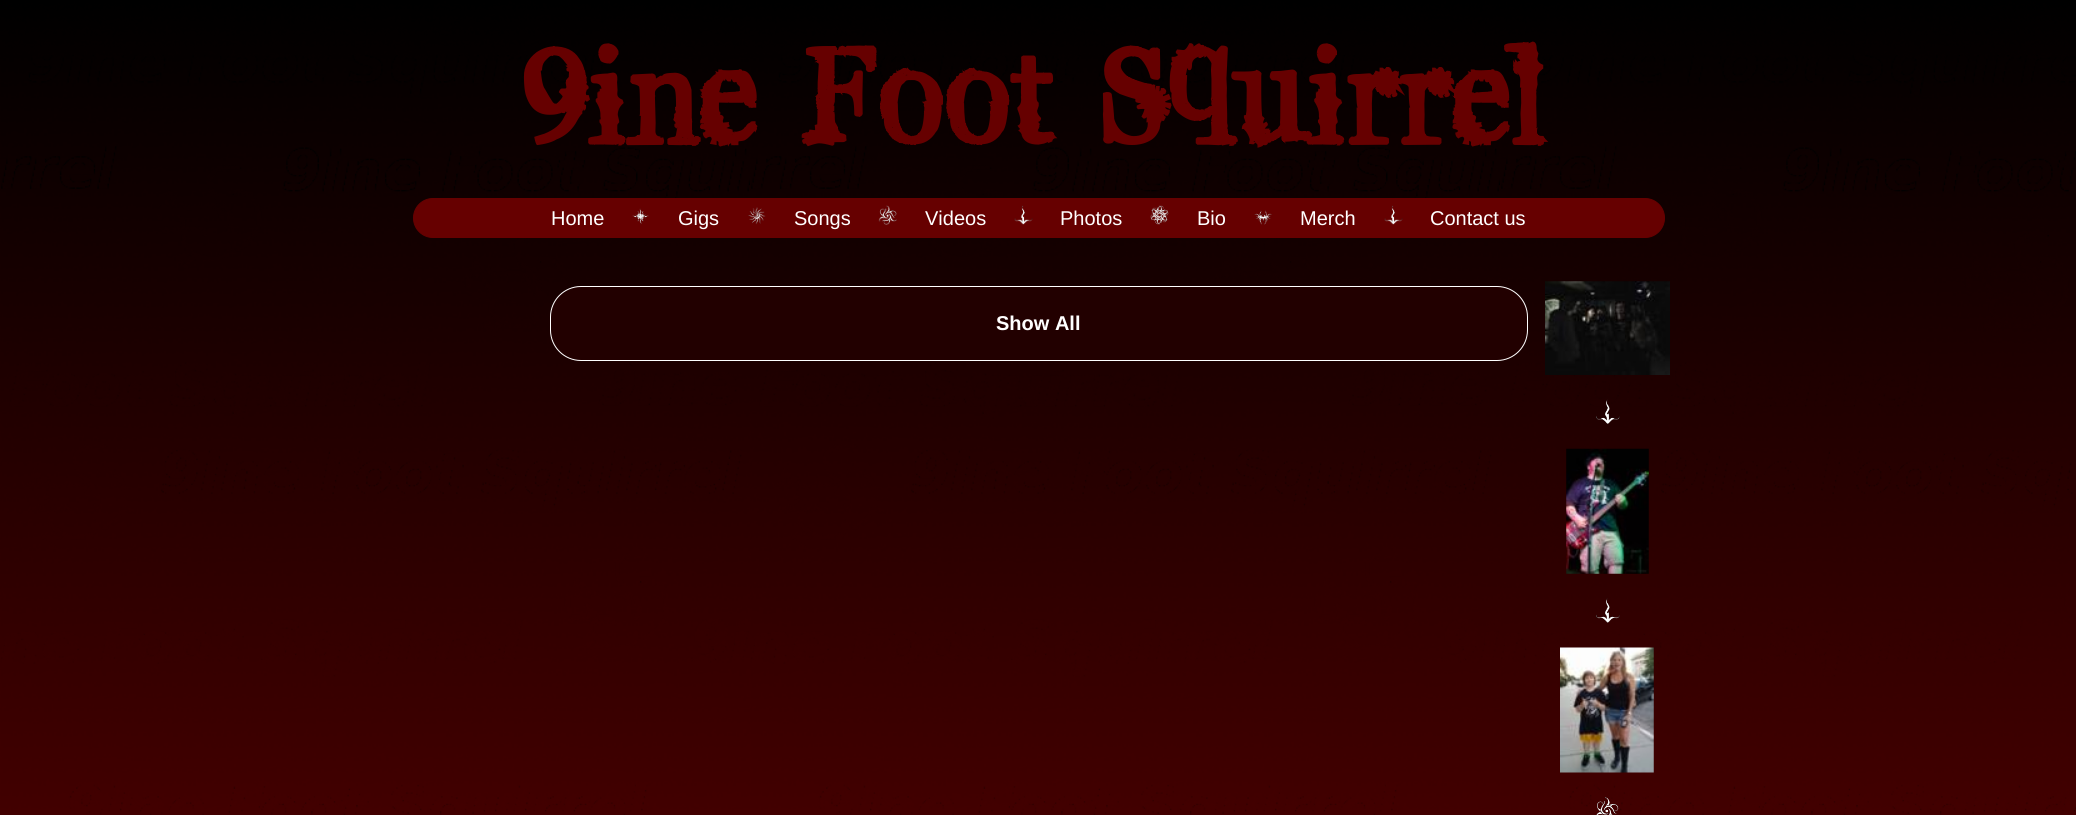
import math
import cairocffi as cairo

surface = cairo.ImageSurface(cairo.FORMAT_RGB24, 2076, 815)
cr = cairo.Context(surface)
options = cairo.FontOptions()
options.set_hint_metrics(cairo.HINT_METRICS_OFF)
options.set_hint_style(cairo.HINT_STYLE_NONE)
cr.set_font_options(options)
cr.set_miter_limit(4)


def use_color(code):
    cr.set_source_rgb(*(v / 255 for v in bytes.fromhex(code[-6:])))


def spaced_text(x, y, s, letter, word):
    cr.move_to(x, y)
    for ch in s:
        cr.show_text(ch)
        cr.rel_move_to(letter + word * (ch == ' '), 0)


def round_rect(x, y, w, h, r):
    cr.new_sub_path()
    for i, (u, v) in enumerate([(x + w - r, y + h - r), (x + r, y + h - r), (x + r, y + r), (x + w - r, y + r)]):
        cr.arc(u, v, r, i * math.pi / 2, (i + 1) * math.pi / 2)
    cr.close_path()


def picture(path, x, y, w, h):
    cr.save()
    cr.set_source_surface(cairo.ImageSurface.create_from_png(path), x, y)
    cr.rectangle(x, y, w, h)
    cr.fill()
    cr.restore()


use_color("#ffffff")
cr.paint()
picture("img1.png", 0, 0, 2076, 815)
picture("img2.png", 1, 55, 749, 760)
picture("img15.png", 751, 55, 749, 760)
picture("img16.png", 1501, 55, 575, 760)
cr.select_font_face("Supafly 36", cairo.FONT_SLANT_NORMAL, cairo.FONT_WEIGHT_BOLD)
cr.set_font_size(120)
use_color("#660000")
spaced_text(527, 145, "9ine Foot Squirrel", 12.5, 0)
round_rect(413.5, 198.5, 1251, 39, 19.5)
cr.fill_preserve()
cr.set_line_width(1)
cr.stroke()
cr.select_font_face("Liberation Sans")
cr.set_font_size(20)
use_color("#ffffff")
cr.move_to(551, 225)
cr.show_text("Home")
picture("img3.png", 632, 208, 17, 17)
cr.move_to(678, 225)
cr.show_text("Gigs")
picture("img4.png", 748, 207, 18, 18)
cr.move_to(794, 225)
cr.show_text("Songs")
picture("img5.png", 878, 205, 19, 20)
cr.move_to(925, 225)
cr.show_text("Videos")
picture("img6.png", 1014, 205, 19, 20)
cr.move_to(1060, 225)
cr.show_text("Photos")
picture("img7.png", 1150, 205, 19, 20)
cr.move_to(1197, 225)
cr.show_text("Bio")
picture("img8.png", 1254, 210, 18, 15)
cr.move_to(1300, 225)
cr.show_text("Merch")
picture("img6.png", 1384, 205, 19, 20)
cr.move_to(1430, 225)
cr.show_text("Contact us")
use_color("#220000")
round_rect(550.5, 286.5, 977, 74, 30.5)
cr.fill_preserve()
use_color("#ffffff")
cr.stroke()
cr.select_font_face("Liberation Sans", cairo.FONT_SLANT_NORMAL, cairo.FONT_WEIGHT_BOLD)
cr.move_to(996, 330)
cr.show_text("Show All")
picture("img9.png", 1545, 281, 125, 94)
picture("img10.png", 1596, 399, 24, 25)
picture("img11.png", 1566, 448, 83, 126)
picture("img12.png", 1596, 598, 24, 25)
picture("img13.png", 1560, 647, 94, 126)
picture("img14.png", 1596, 797, 23, 18)
surface.write_to_png("result.png")
